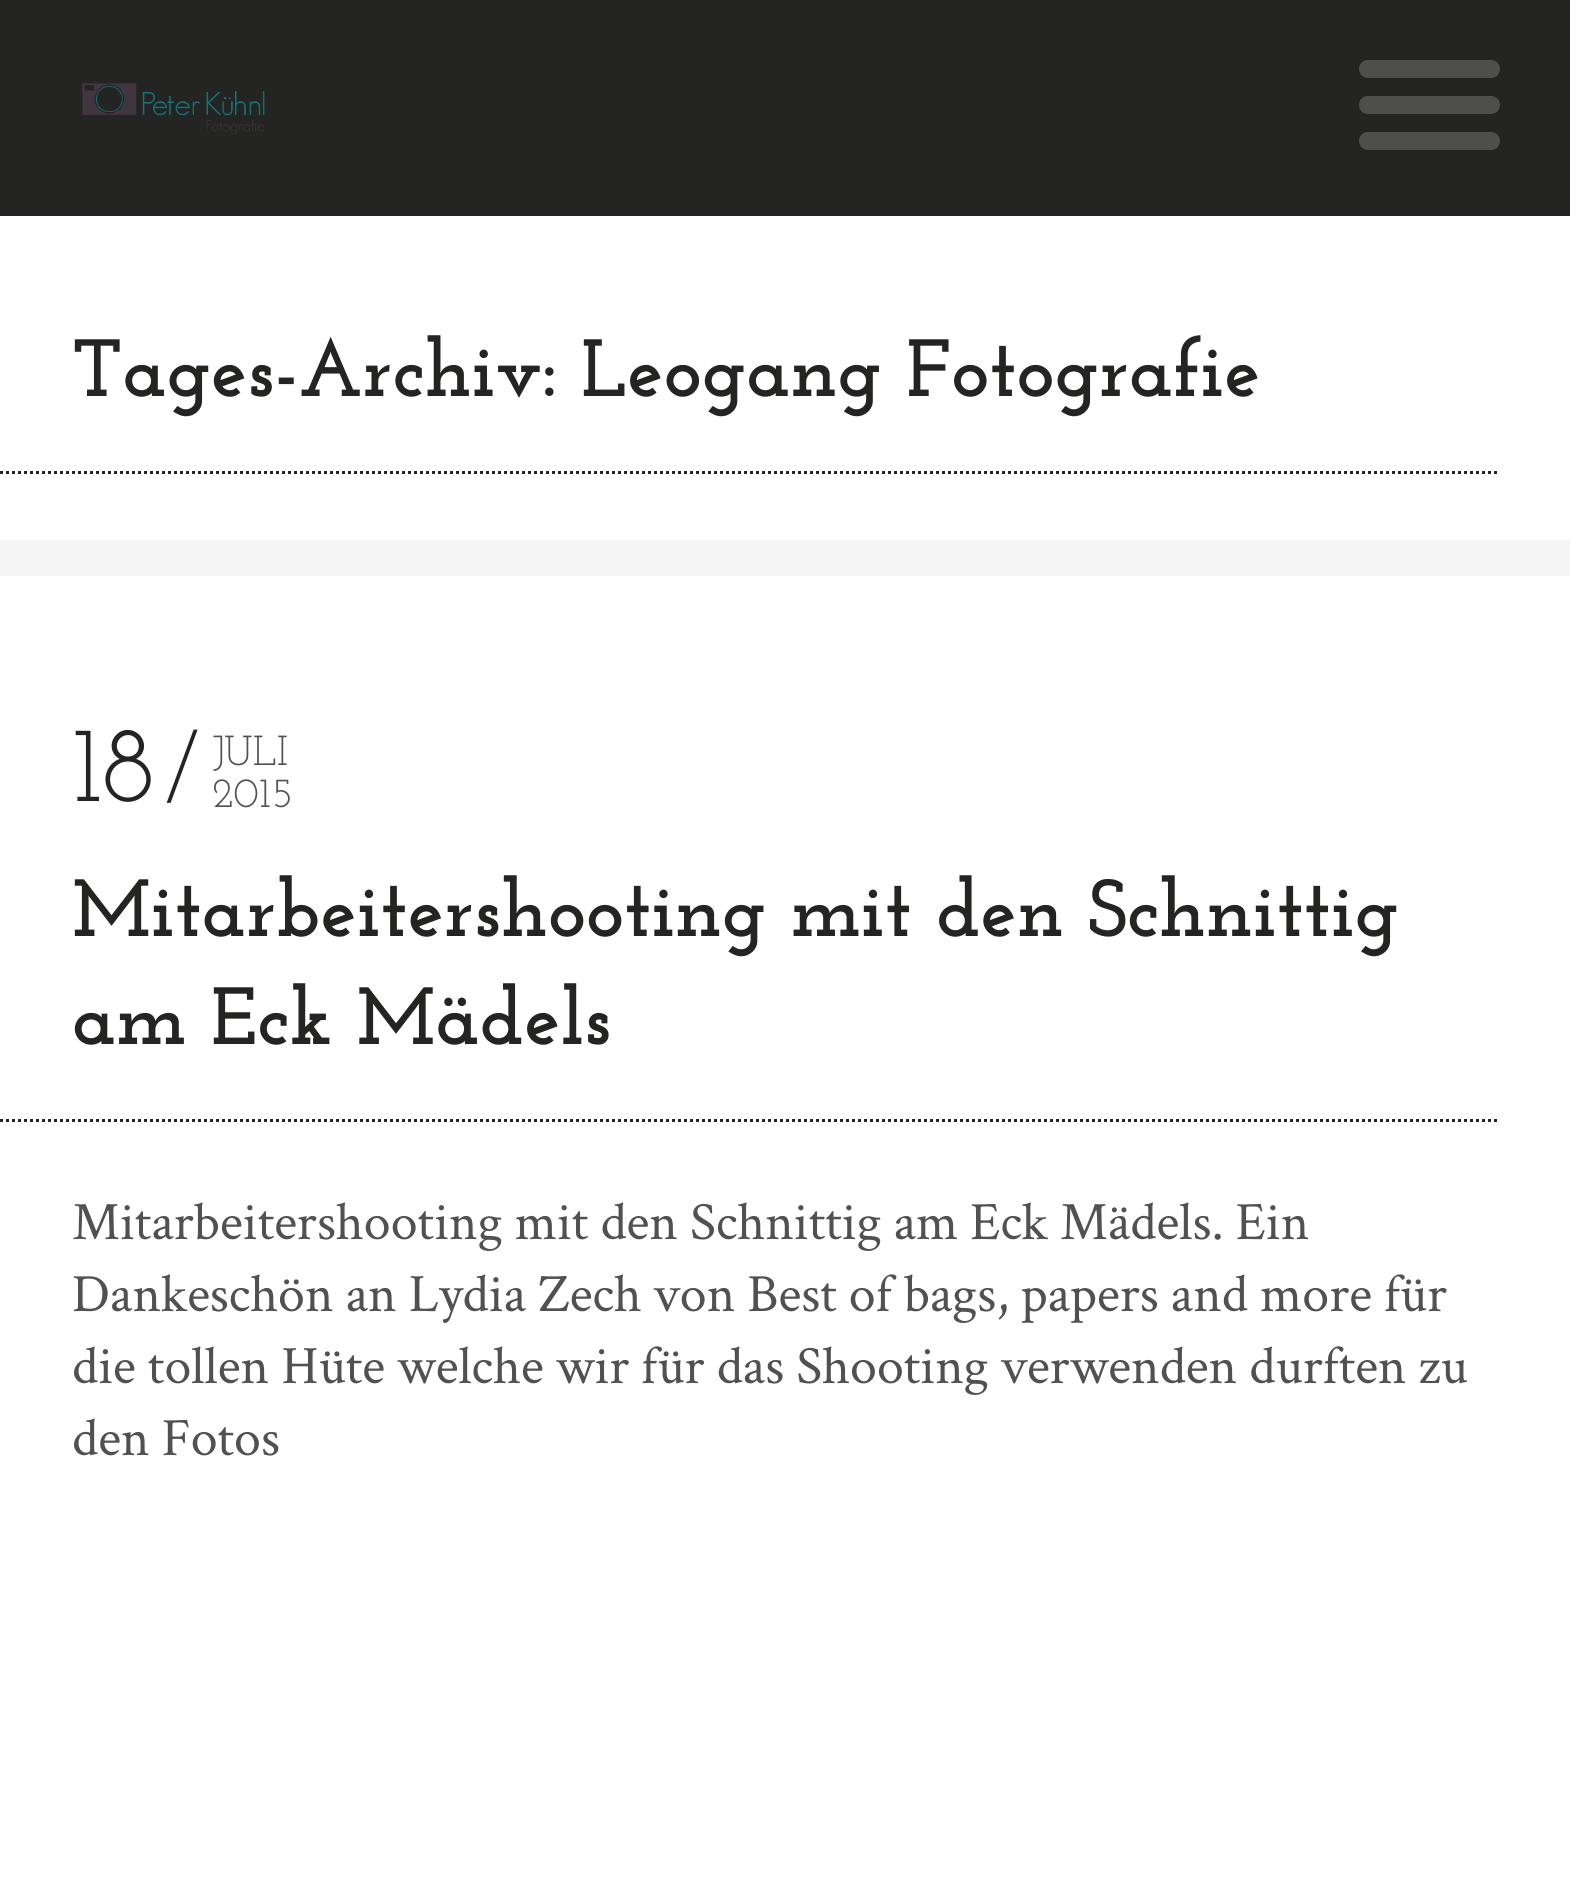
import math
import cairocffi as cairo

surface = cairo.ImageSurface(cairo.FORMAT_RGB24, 1570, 1890)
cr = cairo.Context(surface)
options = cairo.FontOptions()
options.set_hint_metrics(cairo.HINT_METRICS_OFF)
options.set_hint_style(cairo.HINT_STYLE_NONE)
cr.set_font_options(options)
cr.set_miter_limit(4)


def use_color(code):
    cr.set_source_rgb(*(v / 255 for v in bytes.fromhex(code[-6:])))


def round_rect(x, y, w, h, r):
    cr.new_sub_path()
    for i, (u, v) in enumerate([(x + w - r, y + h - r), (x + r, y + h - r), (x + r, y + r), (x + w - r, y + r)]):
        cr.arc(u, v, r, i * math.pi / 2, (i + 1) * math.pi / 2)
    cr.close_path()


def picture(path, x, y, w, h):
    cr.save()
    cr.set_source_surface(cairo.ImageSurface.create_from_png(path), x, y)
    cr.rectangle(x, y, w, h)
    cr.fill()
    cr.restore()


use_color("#242423")
cr.paint()
picture("img1.png", 82, 83, 183, 52)
use_color("#4e4e4d")
round_rect(1359, 96, 141, 18, 9)
cr.fill()
round_rect(1359, 60, 141, 18, 9)
cr.fill()
round_rect(1359, 132, 141, 18, 9)
cr.fill()
use_color("#f5f5f5")
cr.rectangle(0, 540, 1570, 36)
cr.fill()
use_color("#ffffff")
cr.rectangle(0, 216, 1570, 324)
cr.fill()
cr.select_font_face("Josefin Slab Thin")
cr.set_font_size(81)
use_color("#242423")
cr.move_to(72, 396)
cr.show_text("Tages-Archiv: Leogang Fotografie")
cr.new_path()
cr.move_to(0, 472.5)
cr.line_to(1500, 472.5)
cr.set_line_width(3)
cr.set_dash([3, 3])
cr.stroke()
use_color("#ffffff")
cr.rectangle(0, 576, 1570, 1314)
cr.fill()
cr.select_font_face("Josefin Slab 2 Thin")
cr.set_font_size(108)
use_color("#242423")
cr.move_to(72, 801)
cr.show_text("18")
cr.set_font_size(97)
cr.move_to(165, 801)
cr.show_text("/")
cr.set_font_size(42)
use_color("#515150")
cr.move_to(212, 765)
cr.show_text("JULI")
cr.move_to(212, 807)
cr.show_text("2015")
cr.select_font_face("Josefin Slab Thin")
cr.set_font_size(81)
use_color("#242423")
cr.move_to(72, 936)
cr.show_text("Mitarbeitershooting mit den Schnittig")
cr.move_to(72, 1044)
cr.show_text("am Eck Mädels")
cr.new_path()
cr.move_to(0, 1120.5)
cr.line_to(1500, 1120.5)
cr.stroke()
cr.select_font_face("Crimson Text")
cr.set_font_size(54)
use_color("#515150")
cr.move_to(72, 1239)
cr.show_text("Mitarbeitershooting mit den Schnittig am Eck Mädels. Ein")
cr.move_to(72, 1311)
cr.show_text("Dankeschön an Lydia Zech von Best of bags, papers and more für")
cr.move_to(72, 1383)
cr.show_text("die tollen Hüte welche wir für das Shooting verwenden durften zu")
cr.move_to(72, 1455)
cr.show_text("den Fotos")
surface.write_to_png("result.png")
